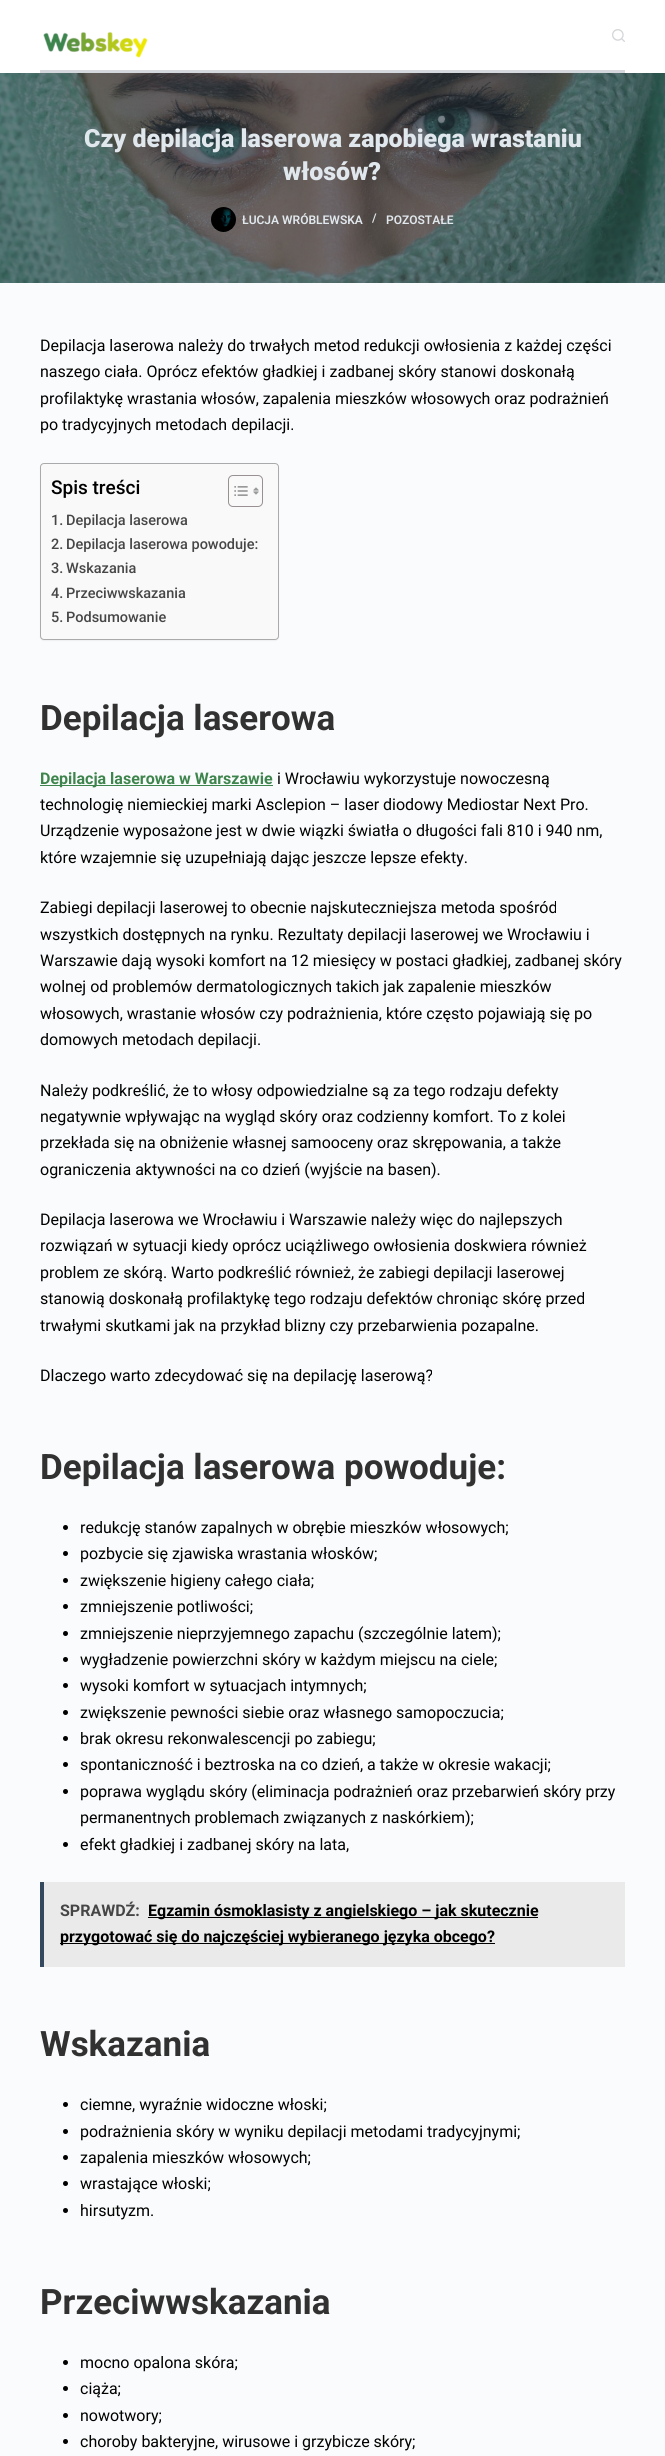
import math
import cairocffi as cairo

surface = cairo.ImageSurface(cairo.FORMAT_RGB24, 665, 2456)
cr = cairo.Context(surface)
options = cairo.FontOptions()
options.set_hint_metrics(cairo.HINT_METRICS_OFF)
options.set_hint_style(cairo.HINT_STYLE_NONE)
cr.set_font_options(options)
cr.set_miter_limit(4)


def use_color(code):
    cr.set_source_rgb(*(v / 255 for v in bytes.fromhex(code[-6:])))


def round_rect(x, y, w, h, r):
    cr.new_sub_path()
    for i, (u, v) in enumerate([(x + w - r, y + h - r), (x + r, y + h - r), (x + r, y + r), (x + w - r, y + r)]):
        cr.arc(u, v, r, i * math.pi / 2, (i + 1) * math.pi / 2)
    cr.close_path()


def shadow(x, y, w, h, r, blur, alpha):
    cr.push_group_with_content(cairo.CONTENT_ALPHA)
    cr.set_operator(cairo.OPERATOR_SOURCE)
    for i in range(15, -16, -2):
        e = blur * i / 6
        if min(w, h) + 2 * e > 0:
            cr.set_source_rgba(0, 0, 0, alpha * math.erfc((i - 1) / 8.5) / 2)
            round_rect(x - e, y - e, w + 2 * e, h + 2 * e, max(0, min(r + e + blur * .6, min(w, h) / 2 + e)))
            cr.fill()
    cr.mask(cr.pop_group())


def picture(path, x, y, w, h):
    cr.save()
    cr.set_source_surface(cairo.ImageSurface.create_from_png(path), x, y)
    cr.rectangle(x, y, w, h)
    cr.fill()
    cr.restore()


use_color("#fafbfc")
cr.paint()
use_color("#ffffff")
cr.rectangle(0, 0, 665, 73)
cr.fill()
use_color("#d5d8dc")
cr.rectangle(40, 70, 585, 3)
cr.fill()
picture("img1.png", 43, 31, 105, 27)
picture("img2.png", 612, 29, 13, 13)
picture("img3.png", 0, 73, 665, 210)
cr.select_font_face("Roboto Black")
cr.set_font_size(25)
use_color("#e1e8ed")
cr.move_to(84, 147)
cr.show_text("Czy depilacja laserowa zapobiega wrastaniu")
cr.move_to(283, 180)
cr.show_text("włosów?")
picture("img4.png", 211, 207, 25, 25)
cr.select_font_face("Roboto SemiBold")
cr.set_font_size(12)
cr.move_to(242, 224)
cr.show_text("ŁUCJA WRÓBLEWSKA")
cr.move_to(372, 222)
cr.show_text("/")
cr.move_to(386, 224)
cr.show_text("POZOSTAŁE")
cr.select_font_face("Roboto")
cr.set_font_size(16)
use_color("#000000")
cr.move_to(40, 351)
cr.show_text("Depilacja laserowa należy do trwałych metod redukcji owłosienia z każdej części")
cr.move_to(40, 377)
cr.show_text("naszego ciała. Oprócz efektów gładkiej i zadbanej skóry stanowi doskonałą")
cr.move_to(40, 404)
cr.show_text("profilaktykę wrastania włosów, zapalenia mieszków włosowych oraz podrażnień")
cr.move_to(40, 430)
cr.show_text("po tradycyjnych metodach depilacji.")
use_color("#000000")
shadow(40, 464, 239, 177, 4, 0.5, 0.05)
use_color("#f9f9f9")
round_rect(40.5, 463.5, 238, 176, 3.5)
cr.fill_preserve()
use_color("#aaaaaa")
cr.set_line_width(1)
cr.stroke()
cr.select_font_face("Roboto Medium")
cr.set_font_size(19)
use_color("#000000")
cr.move_to(51, 494)
cr.show_text("Spis treści")
round_rect(228.5, 475.5, 34, 31, 4.5)
use_color("#999191")
cr.stroke()
picture("img5.png", 234, 486, 14, 10)
picture("img6.png", 253, 487, 6, 8)
cr.set_font_size(14.5)
use_color("#464646")
cr.move_to(51, 525)
cr.show_text("1.")
cr.move_to(66, 525)
cr.show_text("Depilacja laserowa")
cr.move_to(51, 549)
cr.show_text("2.")
cr.move_to(66, 549)
cr.show_text("Depilacja laserowa powoduje:")
cr.move_to(51, 573)
cr.show_text("3.")
cr.move_to(66, 573)
cr.show_text("Wskazania")
cr.move_to(51, 598)
cr.show_text("4.")
cr.move_to(66, 598)
cr.show_text("Przeciwwskazania")
cr.move_to(51, 622)
cr.show_text("5.")
cr.move_to(66, 622)
cr.show_text("Podsumowanie")
cr.select_font_face("Roboto", cairo.FONT_SLANT_NORMAL, cairo.FONT_WEIGHT_BOLD)
cr.set_font_size(35)
use_color("#313131")
cr.move_to(40, 730)
cr.show_text("Depilacja laserowa")
use_color("#3e854d")
cr.rectangle(40, 785, 233, 1)
cr.fill()
cr.set_font_size(16)
cr.move_to(40, 784)
cr.show_text("Depilacja laserowa w Warszawie")
cr.select_font_face("Roboto")
use_color("#000000")
cr.move_to(277, 784)
cr.show_text("i Wrocławiu wykorzystuje nowoczesną")
cr.move_to(40, 810)
cr.show_text("technologię niemieckiej marki Asclepion – laser diodowy Mediostar Next Pro.")
cr.move_to(40, 836)
cr.show_text("Urządzenie wyposażone jest w dwie wiązki światła o długości fali 810 i 940 nm,")
cr.move_to(40, 863)
cr.show_text("które wzajemnie się uzupełniają dając jeszcze lepsze efekty.")
cr.move_to(40, 913)
cr.show_text("Zabiegi depilacji laserowej to obecnie najskuteczniejsza metoda spośród")
cr.move_to(40, 940)
cr.show_text("wszystkich dostępnych na rynku. Rezultaty depilacji laserowej we Wrocławiu i")
cr.move_to(40, 966)
cr.show_text("Warszawie dają wysoki komfort na 12 miesięcy w postaci gładkiej, zadbanej skóry")
cr.move_to(40, 992)
cr.show_text("wolnej od problemów dermatologicznych takich jak zapalenie mieszków")
cr.move_to(40, 1019)
cr.show_text("włosowych, wrastanie włosów czy podrażnienia, które często pojawiają się po")
cr.move_to(40, 1045)
cr.show_text("domowych metodach depilacji.")
cr.move_to(40, 1096)
cr.show_text("Należy podkreślić, że to włosy odpowiedzialne są za tego rodzaju defekty")
cr.move_to(40, 1122)
cr.show_text("negatywnie wpływając na wygląd skóry oraz codzienny komfort. To z kolei")
cr.move_to(40, 1148)
cr.show_text("przekłada się na obniżenie własnej samooceny oraz skrępowania, a także")
cr.move_to(40, 1175)
cr.show_text("ograniczenia aktywności na co dzień (wyjście na basen).")
cr.move_to(40, 1225)
cr.show_text("Depilacja laserowa we Wrocławiu i Warszawie należy więc do najlepszych")
cr.move_to(40, 1251)
cr.show_text("rozwiązań w sytuacji kiedy oprócz uciążliwego owłosienia doskwiera również")
cr.move_to(40, 1278)
cr.show_text("problem ze skórą. Warto podkreślić również, że zabiegi depilacji laserowej")
cr.move_to(40, 1304)
cr.show_text("stanowią doskonałą profilaktykę tego rodzaju defektów chroniąc skórę przed")
cr.move_to(40, 1331)
cr.show_text("trwałymi skutkami jak na przykład blizny czy przebarwienia pozapalne.")
cr.move_to(40, 1381)
cr.show_text("Dlaczego warto zdecydować się na depilację laserową?")
cr.select_font_face("Roboto", cairo.FONT_SLANT_NORMAL, cairo.FONT_WEIGHT_BOLD)
cr.set_font_size(35)
use_color("#313131")
cr.move_to(40, 1479)
cr.show_text("Depilacja laserowa powoduje:")
use_color("#000000")
cr.new_path()
cr.arc(65.5, 1527.5, 2.5, 0, 2 * math.pi)
cr.fill()
cr.select_font_face("Roboto")
cr.set_font_size(16)
cr.move_to(80, 1533)
cr.show_text("redukcję stanów zapalnych w obrębie mieszków włosowych;")
cr.new_path()
cr.arc(65.5, 1553.5, 2.5, 0, 2 * math.pi)
cr.fill()
cr.move_to(80, 1559)
cr.show_text("pozbycie się zjawiska wrastania włosków;")
cr.new_path()
cr.arc(65.5, 1580.5, 2.5, 0, 2 * math.pi)
cr.fill()
cr.move_to(80, 1586)
cr.show_text("zwiększenie higieny całego ciała;")
cr.new_path()
cr.arc(65.5, 1606.5, 2.5, 0, 2 * math.pi)
cr.fill()
cr.move_to(80, 1612)
cr.show_text("zmniejszenie potliwości;")
cr.new_path()
cr.arc(65.5, 1633.5, 2.5, 0, 2 * math.pi)
cr.fill()
cr.move_to(80, 1639)
cr.show_text("zmniejszenie nieprzyjemnego zapachu (szczególnie latem);")
cr.new_path()
cr.arc(65.5, 1659.5, 2.5, 0, 2 * math.pi)
cr.fill()
cr.move_to(80, 1665)
cr.show_text("wygładzenie powierzchni skóry w każdym miejscu na ciele;")
cr.new_path()
cr.arc(65.5, 1685.5, 2.5, 0, 2 * math.pi)
cr.fill()
cr.move_to(80, 1691)
cr.show_text("wysoki komfort w sytuacjach intymnych;")
cr.new_path()
cr.arc(65.5, 1712.5, 2.5, 0, 2 * math.pi)
cr.fill()
cr.move_to(80, 1718)
cr.show_text("zwiększenie pewności siebie oraz własnego samopoczucia;")
cr.new_path()
cr.arc(65.5, 1738.5, 2.5, 0, 2 * math.pi)
cr.fill()
cr.move_to(80, 1744)
cr.show_text("brak okresu rekonwalescencji po zabiegu;")
cr.new_path()
cr.arc(65.5, 1764.5, 2.5, 0, 2 * math.pi)
cr.fill()
cr.move_to(80, 1770)
cr.show_text("spontaniczność i beztroska na co dzień, a także w okresie wakacji;")
cr.new_path()
cr.arc(65.5, 1791.5, 2.5, 0, 2 * math.pi)
cr.fill()
cr.move_to(80, 1797)
cr.show_text("poprawa wyglądu skóry (eliminacja podrażnień oraz przebarwień skóry przy")
cr.move_to(80, 1823)
cr.show_text("permanentnych problemach związanych z naskórkiem);")
cr.new_path()
cr.arc(65.5, 1844.5, 2.5, 0, 2 * math.pi)
cr.fill()
cr.move_to(80, 1850)
cr.show_text("efekt gładkiej i zadbanej skóry na lata,")
use_color("#eaeaea")
cr.rectangle(44, 1882, 581, 85)
cr.fill()
use_color("#34495e")
cr.rectangle(40, 1882, 4, 85)
cr.fill()
cr.select_font_face("Roboto", cairo.FONT_SLANT_NORMAL, cairo.FONT_WEIGHT_BOLD)
use_color("#464646")
cr.move_to(60, 1916)
cr.show_text("SPRAWDŹ:")
use_color("#000000")
cr.rectangle(148, 1917, 390, 1)
cr.fill()
cr.move_to(148, 1916)
cr.show_text("Egzamin ósmoklasisty z angielskiego – jak skutecznie")
cr.rectangle(60, 1943, 435, 1)
cr.fill()
cr.move_to(60, 1942)
cr.show_text("przygotować się do najczęściej wybieranego języka obcego?")
cr.set_font_size(35)
use_color("#313131")
cr.move_to(40, 2056)
cr.show_text("Wskazania")
use_color("#000000")
cr.new_path()
cr.arc(65.5, 2104.5, 2.5, 0, 2 * math.pi)
cr.fill()
cr.select_font_face("Roboto")
cr.set_font_size(16)
cr.move_to(80, 2110)
cr.show_text("ciemne, wyraźnie widoczne włoski;")
cr.new_path()
cr.arc(65.5, 2131.5, 2.5, 0, 2 * math.pi)
cr.fill()
cr.move_to(80, 2137)
cr.show_text("podrażnienia skóry w wyniku depilacji metodami tradycyjnymi;")
cr.new_path()
cr.arc(65.5, 2157.5, 2.5, 0, 2 * math.pi)
cr.fill()
cr.move_to(80, 2163)
cr.show_text("zapalenia mieszków włosowych;")
cr.new_path()
cr.arc(65.5, 2183.5, 2.5, 0, 2 * math.pi)
cr.fill()
cr.move_to(80, 2189)
cr.show_text("wrastające włoski;")
cr.new_path()
cr.arc(65.5, 2210.5, 2.5, 0, 2 * math.pi)
cr.fill()
cr.move_to(80, 2216)
cr.show_text("hirsutyzm.")
cr.select_font_face("Roboto", cairo.FONT_SLANT_NORMAL, cairo.FONT_WEIGHT_BOLD)
cr.set_font_size(35)
use_color("#313131")
cr.move_to(40, 2314)
cr.show_text("Przeciwwskazania")
use_color("#000000")
cr.new_path()
cr.arc(65.5, 2362.5, 2.5, 0, 2 * math.pi)
cr.fill()
cr.select_font_face("Roboto")
cr.set_font_size(16)
cr.move_to(80, 2368)
cr.show_text("mocno opalona skóra;")
cr.new_path()
cr.arc(65.5, 2388.5, 2.5, 0, 2 * math.pi)
cr.fill()
cr.move_to(80, 2394)
cr.show_text("ciąża;")
cr.new_path()
cr.arc(65.5, 2415.5, 2.5, 0, 2 * math.pi)
cr.fill()
cr.move_to(80, 2421)
cr.show_text("nowotwory;")
cr.new_path()
cr.arc(65.5, 2441.5, 2.5, 0, 2 * math.pi)
cr.fill()
cr.move_to(80, 2447)
cr.show_text("choroby bakteryjne, wirusowe i grzybicze skóry;")
surface.write_to_png("result.png")
